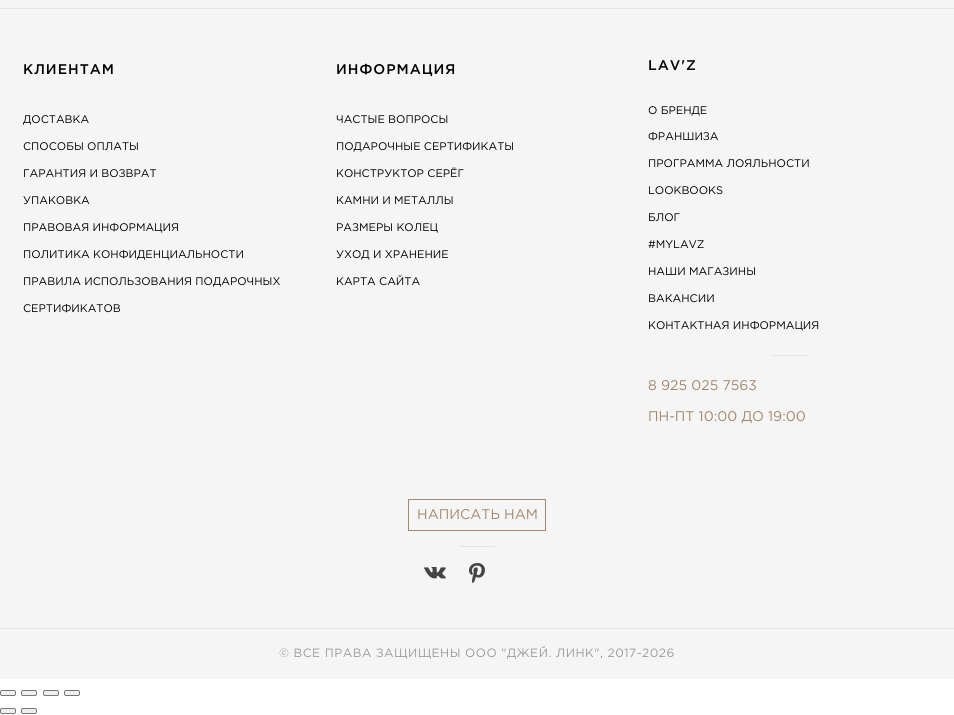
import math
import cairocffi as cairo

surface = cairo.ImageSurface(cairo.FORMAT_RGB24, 954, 715)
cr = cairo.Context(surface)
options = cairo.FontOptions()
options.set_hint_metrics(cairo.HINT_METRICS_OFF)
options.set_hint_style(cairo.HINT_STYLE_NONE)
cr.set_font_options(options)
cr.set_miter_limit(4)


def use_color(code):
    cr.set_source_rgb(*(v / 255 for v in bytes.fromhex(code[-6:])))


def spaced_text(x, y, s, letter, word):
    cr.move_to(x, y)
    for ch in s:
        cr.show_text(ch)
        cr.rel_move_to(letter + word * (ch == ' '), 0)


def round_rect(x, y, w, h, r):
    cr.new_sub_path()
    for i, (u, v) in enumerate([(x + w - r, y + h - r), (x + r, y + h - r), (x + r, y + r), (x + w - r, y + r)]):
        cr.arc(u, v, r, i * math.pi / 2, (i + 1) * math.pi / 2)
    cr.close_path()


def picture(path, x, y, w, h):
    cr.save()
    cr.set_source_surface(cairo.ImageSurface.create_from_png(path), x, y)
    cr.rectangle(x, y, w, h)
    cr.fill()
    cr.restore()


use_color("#ffffff")
cr.paint()
use_color("#f5f5f5")
cr.rectangle(0, 0, 954, 679)
cr.fill()
use_color("#e5e5e5")
cr.rectangle(0, 8, 954, 1)
cr.fill()
cr.select_font_face("Gotham Medium")
cr.set_font_size(14)
use_color("#000000")
spaced_text(23, 74, "КЛИЕНТАМ", 1, 0)
cr.select_font_face("Gotham")
cr.set_font_size(11)
cr.move_to(23, 123)
cr.show_text("ДОСТАВКА")
cr.move_to(23, 150)
cr.show_text("СПОСОБЫ ОПЛАТЫ")
cr.move_to(23, 177)
cr.show_text("ГАРАНТИЯ И ВОЗВРАТ")
cr.move_to(23, 204)
cr.show_text("УПАКОВКА")
cr.move_to(23, 231)
cr.show_text("ПРАВОВАЯ ИНФОРМАЦИЯ")
cr.move_to(23, 258)
cr.show_text("ПОЛИТИКА КОНФИДЕНЦИАЛЬНОСТИ")
cr.move_to(23, 285)
cr.show_text("ПРАВИЛА ИСПОЛЬЗОВАНИЯ ПОДАРОЧНЫХ")
cr.move_to(23, 312)
cr.show_text("СЕРТИФИКАТОВ")
cr.select_font_face("Gotham Medium")
cr.set_font_size(14)
spaced_text(336, 74, "ИНФОРМАЦИЯ", 1, 0)
cr.select_font_face("Gotham")
cr.set_font_size(11)
cr.move_to(336, 123)
cr.show_text("ЧАСТЫЕ ВОПРОСЫ")
cr.move_to(336, 150)
cr.show_text("ПОДАРОЧНЫЕ СЕРТИФИКАТЫ")
cr.move_to(336, 177)
cr.show_text("КОНСТРУКТОР СЕРЁГ")
cr.move_to(336, 204)
cr.show_text("КАМНИ И МЕТАЛЛЫ")
cr.move_to(336, 231)
cr.show_text("РАЗМЕРЫ КОЛЕЦ")
cr.move_to(336, 258)
cr.show_text("УХОД И ХРАНЕНИЕ")
cr.move_to(336, 285)
cr.show_text("КАРТА САЙТА")
cr.select_font_face("Gotham Medium")
cr.set_font_size(14)
spaced_text(648, 70, "LAV'Z", 1, 0)
cr.select_font_face("Gotham")
cr.set_font_size(11)
cr.move_to(648, 114)
cr.show_text("О БРЕНДЕ")
cr.move_to(648, 140)
cr.show_text("ФРАНШИЗА")
cr.move_to(648, 167)
cr.show_text("ПРОГРАММА ЛОЯЛЬНОСТИ")
cr.move_to(648, 194)
cr.show_text("LOOKBOOKS")
cr.move_to(648, 221)
cr.show_text("БЛОГ")
cr.move_to(648, 248)
cr.show_text("#MYLAVZ")
cr.move_to(648, 275)
cr.show_text("НАШИ МАГАЗИНЫ")
cr.move_to(648, 302)
cr.show_text("ВАКАНСИИ")
cr.move_to(648, 329)
cr.show_text("КОНТАКТНАЯ ИНФОРМАЦИЯ")
use_color("#e4e4e4")
cr.rectangle(772, 355, 35, 1)
cr.fill()
cr.set_font_size(14)
use_color("#a4886c")
cr.move_to(648, 390)
cr.show_text("8 925 025 7563")
cr.move_to(648, 421)
cr.show_text("ПН-ПТ 10:00 ДО 19:00")
cr.rectangle(408.5, 499.5, 137, 31)
cr.set_line_width(1)
cr.stroke()
cr.move_to(417, 519)
cr.show_text("НАПИСАТЬ НАМ")
use_color("#e4e4e4")
cr.rectangle(460, 546, 35, 1)
cr.fill()
picture("img1.png", 424, 567, 22, 12)
picture("img2.png", 469, 563, 16, 20)
use_color("#e5e5e5")
cr.rectangle(0, 628, 954, 1)
cr.fill()
cr.set_font_size(12)
use_color("#9b9b9b")
spaced_text(279, 657, "© ВСЕ ПРАВА ЗАЩИЩЕНЫ ООО \"ДЖЕЙ. ЛИНК\", 2017-2026", 0.5, 0)
use_color("#efefef")
round_rect(0.5, 690.5, 15, 5, 1.5)
cr.fill_preserve()
use_color("#767676")
cr.stroke()
use_color("#efefef")
round_rect(21.5, 690.5, 15, 5, 1.5)
cr.fill_preserve()
use_color("#767676")
cr.stroke()
use_color("#efefef")
round_rect(43.5, 690.5, 15, 5, 1.5)
cr.fill_preserve()
use_color("#767676")
cr.stroke()
use_color("#efefef")
round_rect(64.5, 690.5, 15, 5, 1.5)
cr.fill_preserve()
use_color("#767676")
cr.stroke()
use_color("#efefef")
round_rect(0.5, 708.5, 15, 5, 1.5)
cr.fill_preserve()
use_color("#767676")
cr.stroke()
use_color("#efefef")
round_rect(21.5, 708.5, 15, 5, 1.5)
cr.fill_preserve()
use_color("#767676")
cr.stroke()
surface.write_to_png("result.png")
